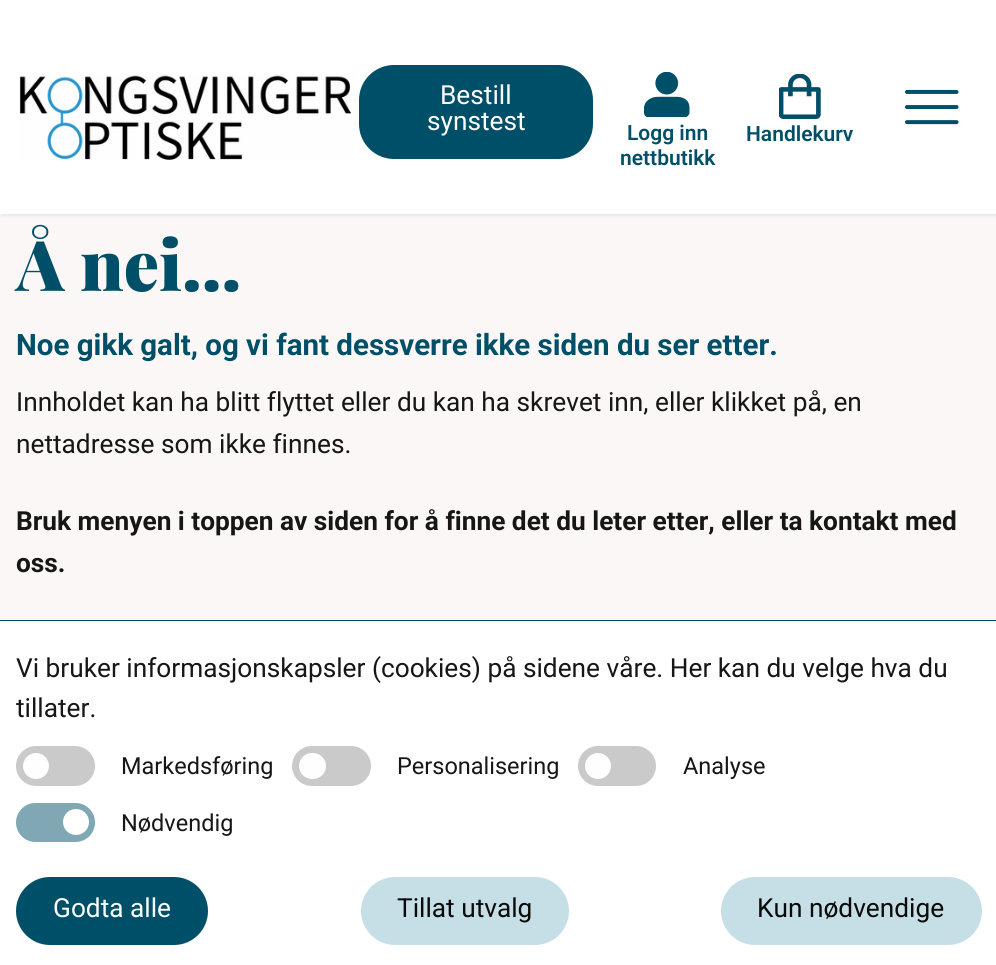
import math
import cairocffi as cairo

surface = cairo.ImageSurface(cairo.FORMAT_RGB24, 996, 965)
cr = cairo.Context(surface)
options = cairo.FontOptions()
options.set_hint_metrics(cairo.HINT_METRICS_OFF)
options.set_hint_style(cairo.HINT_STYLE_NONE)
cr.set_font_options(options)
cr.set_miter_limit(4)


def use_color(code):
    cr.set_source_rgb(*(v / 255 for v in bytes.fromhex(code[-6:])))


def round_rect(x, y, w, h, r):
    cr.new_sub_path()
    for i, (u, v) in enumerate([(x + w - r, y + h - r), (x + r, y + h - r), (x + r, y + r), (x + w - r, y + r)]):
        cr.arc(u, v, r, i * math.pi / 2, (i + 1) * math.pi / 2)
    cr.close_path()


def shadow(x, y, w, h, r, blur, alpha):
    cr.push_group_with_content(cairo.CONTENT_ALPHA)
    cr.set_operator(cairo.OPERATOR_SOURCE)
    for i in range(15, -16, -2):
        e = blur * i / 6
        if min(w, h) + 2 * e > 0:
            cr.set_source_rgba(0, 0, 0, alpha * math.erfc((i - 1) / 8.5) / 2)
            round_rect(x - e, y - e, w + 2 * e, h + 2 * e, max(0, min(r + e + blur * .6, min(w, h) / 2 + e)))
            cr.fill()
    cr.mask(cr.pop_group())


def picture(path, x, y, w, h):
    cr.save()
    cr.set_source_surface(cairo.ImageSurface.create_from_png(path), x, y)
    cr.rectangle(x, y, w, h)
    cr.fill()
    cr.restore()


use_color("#faf7f6")
cr.paint()
use_color("#000000")
shadow(2, 2, 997, 213, 0, 2.5, 0.1)
use_color("#ffffff")
cr.rectangle(0, 0, 996, 214)
cr.fill()
picture("img1.png", 19, 74, 333, 86)
use_color("#004f68")
round_rect(360, 66, 232, 92, 34)
cr.fill_preserve()
cr.stroke()
cr.select_font_face("Roboto")
cr.set_font_size(26.25)
use_color("#fefefe")
cr.move_to(440, 104)
cr.show_text("Bestill")
cr.move_to(427, 130)
cr.show_text("synstest")
picture("img2.png", 905, 89, 54, 36)
picture("img3.png", 644, 72, 46, 45)
cr.select_font_face("Roboto SemiBold")
cr.set_font_size(21)
use_color("#004f68")
cr.move_to(627, 140)
cr.show_text("Logg inn")
cr.move_to(620, 165)
cr.show_text("nettbutikk")
picture("img4.png", 779, 74, 42, 45)
cr.move_to(746, 141)
cr.show_text("Handlekurv")
cr.select_font_face("Playfair Display Black")
cr.set_font_size(70)
cr.move_to(16, 291)
cr.show_text("Å nei...")
cr.select_font_face("Roboto", cairo.FONT_SLANT_NORMAL, cairo.FONT_WEIGHT_BOLD)
cr.set_font_size(29.5)
cr.move_to(16, 355)
cr.show_text("Noe gikk galt, og vi fant dessverre ikke siden du ser etter.")
cr.select_font_face("Roboto")
cr.set_font_size(26.25)
use_color("#161616")
cr.move_to(16, 411)
cr.show_text("Innholdet kan ha blitt flyttet eller du kan ha skrevet inn, eller klikket på, en")
cr.move_to(16, 453)
cr.show_text("nettadresse som ikke finnes.")
cr.select_font_face("Roboto", cairo.FONT_SLANT_NORMAL, cairo.FONT_WEIGHT_BOLD)
cr.move_to(16, 530)
cr.show_text("Bruk menyen i toppen av siden for å finne det du leter etter, eller ta kontakt med")
cr.move_to(16, 572)
cr.show_text("oss.")
use_color("#004f68")
cr.rectangle(0, 620, 996, 1)
cr.fill()
use_color("#ffffff")
cr.rectangle(0, 621, 996, 344)
cr.fill()
cr.select_font_face("Roboto")
use_color("#161616")
cr.move_to(16, 677)
cr.show_text("Vi bruker informasjonskapsler (cookies) på sidene våre. Her kan du velge hva du")
cr.move_to(16, 717)
cr.show_text("tillater.")
use_color("#cacaca")
round_rect(16, 746, 79, 40, 20)
cr.fill()
use_color("#fefefe")
cr.arc(36, 766, 13, 0, 2 * math.pi)
cr.fill()
cr.set_font_size(23.5)
use_color("#161616")
cr.move_to(121, 774)
cr.show_text("Markedsføring")
use_color("#cacaca")
round_rect(292, 746, 79, 40, 20)
cr.fill()
use_color("#fefefe")
round_rect(299, 753, 27, 26, 13)
cr.fill()
use_color("#161616")
cr.move_to(397, 774)
cr.show_text("Personalisering")
use_color("#cacaca")
round_rect(578, 746, 78, 40, 20)
cr.fill()
use_color("#fefefe")
cr.arc(598, 766, 13, 0, 2 * math.pi)
cr.fill()
use_color("#161616")
cr.move_to(683, 774)
cr.show_text("Analyse")
use_color("#80a7b4")
round_rect(16, 803, 79, 39, 19.5)
cr.fill()
use_color("#ffffff")
cr.arc(76, 822, 13, 0, 2 * math.pi)
cr.fill()
use_color("#161616")
cr.move_to(121, 831)
cr.show_text("Nødvendig")
use_color("#004f68")
round_rect(17, 878, 190, 66, 33)
cr.fill_preserve()
cr.stroke()
cr.set_font_size(26.25)
use_color("#fefefe")
cr.move_to(53, 917)
cr.show_text("Godta alle")
use_color("#c6dfe7")
round_rect(362, 878, 206, 66, 33)
cr.fill_preserve()
cr.stroke()
use_color("#0a0a0a")
cr.move_to(397, 917)
cr.show_text("Tillat utvalg")
use_color("#c6dfe7")
round_rect(722, 878, 259, 66, 33)
cr.fill_preserve()
cr.stroke()
use_color("#0a0a0a")
cr.move_to(757, 917)
cr.show_text("Kun nødvendige")
surface.write_to_png("result.png")
